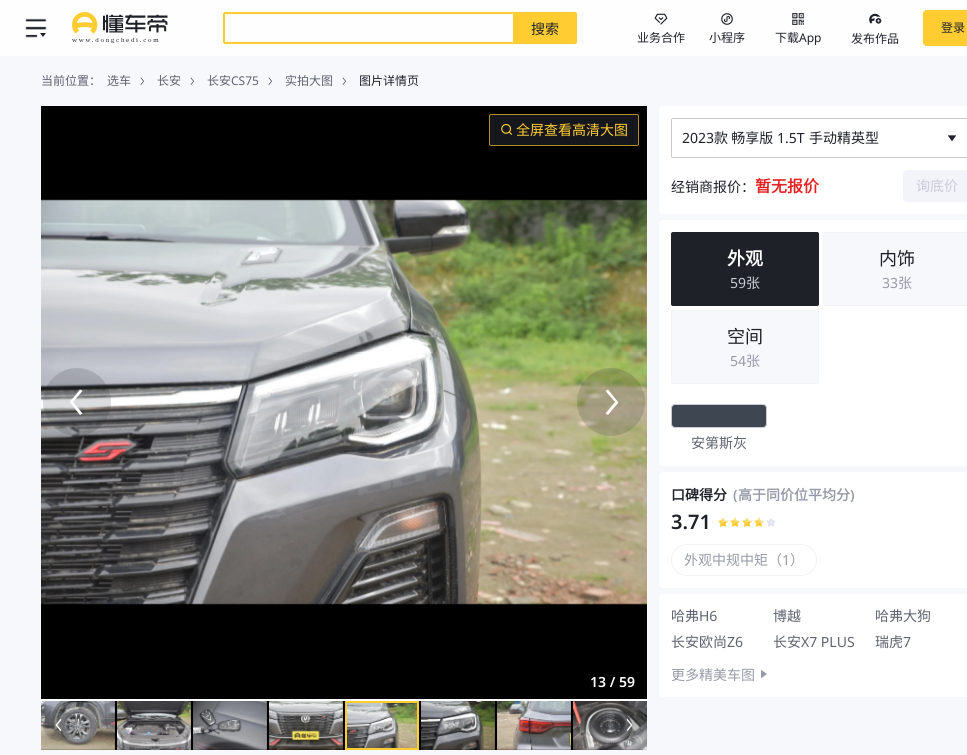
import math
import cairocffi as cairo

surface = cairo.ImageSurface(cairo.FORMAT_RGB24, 967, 755)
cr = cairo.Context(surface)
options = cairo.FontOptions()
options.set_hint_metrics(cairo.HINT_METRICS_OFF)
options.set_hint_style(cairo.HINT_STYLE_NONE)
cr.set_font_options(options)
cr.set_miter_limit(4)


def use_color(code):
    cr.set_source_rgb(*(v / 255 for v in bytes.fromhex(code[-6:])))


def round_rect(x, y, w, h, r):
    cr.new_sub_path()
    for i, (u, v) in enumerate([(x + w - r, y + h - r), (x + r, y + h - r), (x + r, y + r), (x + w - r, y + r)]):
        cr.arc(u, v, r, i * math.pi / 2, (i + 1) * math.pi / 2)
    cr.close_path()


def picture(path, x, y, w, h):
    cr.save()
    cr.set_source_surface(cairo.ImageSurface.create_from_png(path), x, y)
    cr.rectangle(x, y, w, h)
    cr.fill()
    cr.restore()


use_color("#f7f8fc")
cr.paint()
use_color("#fefeff")
cr.rectangle(0, 0, 967, 56)
cr.fill()
picture("img1.png", 25, 18, 22, 20)
use_color("#1f2129")
cr.new_path()
cr.move_to(40, 33)
cr.line_to(46, 33)
cr.line_to(43, 37)
cr.close_path()
cr.fill()
picture("img2.png", 72, 12, 96, 31)
use_color("#ffcc32")
cr.rectangle(224, 12, 289, 2)
cr.fill()
cr.rectangle(224, 42, 289, 2)
cr.fill()
cr.rectangle(223, 13, 2, 30)
cr.fill()
cr.new_path()
cr.move_to(513, 12)
cr.line_to(575, 12)
cr.curve_to(576, 12, 577, 13, 577, 14)
cr.line_to(577, 42)
cr.curve_to(577, 43, 576, 44, 575, 44)
cr.line_to(513, 44)
cr.close_path()
cr.fill()
cr.select_font_face("Noto Sans CJK SC")
cr.set_font_size(14)
use_color("#1f2129")
cr.move_to(531, 34)
cr.show_text("搜索")
use_color("#ffcc32")
round_rect(923, 10, 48, 36, 4)
cr.fill()
cr.set_font_size(12)
use_color("#1f2129")
cr.move_to(941, 32)
cr.show_text("登录")
picture("img3.png", 654, 13, 14, 12)
cr.move_to(637, 42)
cr.show_text("业务合作")
picture("img4.png", 721, 13, 12, 12)
cr.move_to(709, 42)
cr.show_text("小程序")
picture("img5.png", 792, 13, 12, 12)
cr.move_to(775, 42)
cr.show_text("下载")
cr.select_font_face("Noto Sans")
cr.move_to(799, 42)
cr.show_text("App")
picture("img6.png", 869, 13, 13, 11)
cr.select_font_face("Noto Sans CJK SC")
cr.move_to(851, 43)
cr.show_text("发布作品")
use_color("#606370")
cr.move_to(41, 85)
cr.show_text("当前位置：")
cr.move_to(107, 85)
cr.show_text("选车")
picture("img7.png", 140, 77, 4, 8)
cr.move_to(157, 85)
cr.show_text("长安")
picture("img7.png", 190, 77, 4, 8)
cr.move_to(207, 85)
cr.show_text("长安")
cr.select_font_face("Noto Sans")
cr.move_to(231, 85)
cr.show_text("CS75")
picture("img7.png", 268, 77, 4, 8)
cr.select_font_face("Noto Sans CJK SC")
cr.move_to(285, 85)
cr.show_text("实拍大图")
picture("img7.png", 342, 77, 4, 8)
use_color("#1f2129")
cr.move_to(359, 85)
cr.show_text("图片详情页")
use_color("#000000")
cr.rectangle(41, 106, 606, 593)
cr.fill()
picture("img8.png", 41, 199, 606, 406)
use_color("#16171d")
round_rect(489.5, 114.5, 149, 31, 1.5)
cr.fill_preserve()
use_color("#b38f23")
cr.set_line_width(1)
cr.stroke()
picture("img9.png", 501, 123, 12, 12)
cr.set_font_size(14)
use_color("#ffcc32")
cr.move_to(516, 135)
cr.show_text("全屏查看高清大图")
cr.set_source_rgba(0.122, 0.129, 0.161, 0.16)
cr.new_path()
cr.arc(77, 402, 34, 0, 2 * math.pi)
cr.fill()
use_color("#ffffff")
cr.new_path()
cr.move_to(80, 389.5)
cr.line_to(82.5, 391)
cr.line_to(73, 402)
cr.line_to(82.5, 413.5)
cr.line_to(80, 415)
cr.line_to(72, 405)
cr.curve_to(68.5, 401, 69.5, 402, 73.5, 397.5)
cr.close_path()
cr.fill()
cr.set_source_rgba(0.122, 0.129, 0.161, 0.16)
cr.arc(611, 402, 34, 0, 2 * math.pi)
cr.fill()
use_color("#ffffff")
cr.new_path()
cr.move_to(608, 389.5)
cr.line_to(616, 399.5)
cr.curve_to(619.5, 403.5, 618.5, 402.5, 614.5, 407)
cr.line_to(608, 415)
cr.line_to(605.5, 413.5)
cr.line_to(615, 402)
cr.line_to(605.5, 391)
cr.close_path()
cr.fill()
cr.select_font_face("Noto Sans SemiBold")
cr.move_to(590, 687)
cr.show_text("13 / 59")
cr.rectangle(41, 699, 606, 2)
cr.fill()
use_color("#000000")
cr.rectangle(41, 701, 606, 49)
cr.fill()
picture("img10.png", 41, 701, 74, 49)
picture("img11.png", 117, 701, 74, 49)
picture("img12.png", 193, 701, 74, 49)
picture("img13.png", 269, 701, 74, 49)
picture("img14.png", 347, 703, 70, 45)
cr.rectangle(346, 702, 72, 47)
use_color("#ffcc32")
cr.set_line_width(2)
cr.stroke()
picture("img15.png", 421, 701, 74, 49)
picture("img16.png", 497, 701, 74, 49)
picture("img17.png", 573, 701, 74, 49)
cr.set_source_rgba(0.122, 0.129, 0.161, 0.16)
cr.arc(59, 725, 16, 0, 2 * math.pi)
cr.fill()
picture("img18.png", 55, 719, 7, 12)
cr.arc(629, 725, 16, 0, 2 * math.pi)
cr.fill()
picture("img19.png", 626, 719, 7, 12)
use_color("#ffffff")
round_rect(659, 106, 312, 108, 4)
cr.fill()
round_rect(671.5, 118.5, 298, 39, 1.5)
use_color("#c9cbd6")
cr.set_line_width(1)
cr.stroke()
cr.select_font_face("Noto Sans")
use_color("#1f2129")
cr.move_to(682, 143)
cr.show_text("2023")
cr.select_font_face("Noto Sans CJK SC")
cr.move_to(714, 143)
cr.show_text("款 畅享版")
cr.select_font_face("Noto Sans")
cr.move_to(777, 143)
cr.show_text("1.5T")
cr.select_font_face("Noto Sans CJK SC")
cr.move_to(809, 143)
cr.show_text("手动精英型")
picture("img20.png", 948, 135, 8, 6)
cr.move_to(671, 192)
cr.show_text("经销商报价：")
cr.select_font_face("Noto Sans CJK SC", cairo.FONT_SLANT_NORMAL, cairo.FONT_WEIGHT_BOLD)
cr.set_font_size(16)
use_color("#e62021")
cr.move_to(755, 192)
cr.show_text("暂无报价")
use_color("#f2f4fa")
round_rect(903, 170, 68, 32, 4)
cr.fill()
cr.select_font_face("Noto Sans CJK SC")
cr.set_font_size(14)
use_color("#c9cbd6")
cr.move_to(916, 191)
cr.show_text("询底价")
use_color("#ffffff")
round_rect(659, 220, 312, 246, 4)
cr.fill()
use_color("#1f2129")
round_rect(671.5, 232.5, 147, 73, 1.5)
cr.fill_preserve()
cr.stroke()
cr.select_font_face("Noto Sans CJK SC", cairo.FONT_SLANT_NORMAL, cairo.FONT_WEIGHT_BOLD)
cr.set_font_size(18)
use_color("#ffffff")
cr.move_to(727, 265)
cr.show_text("外观")
cr.select_font_face("Noto Sans")
cr.set_font_size(14)
use_color("#c9cbd6")
cr.move_to(730, 288)
cr.show_text("59")
cr.select_font_face("Noto Sans CJK SC")
cr.move_to(746, 288)
cr.show_text("张")
use_color("#f7f8fc")
round_rect(823.5, 232.5, 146, 73, 1.5)
cr.fill_preserve()
use_color("#f2f4fa")
cr.stroke()
cr.set_font_size(18)
use_color("#1f2129")
cr.move_to(879, 265)
cr.show_text("内饰")
cr.select_font_face("Noto Sans")
cr.set_font_size(14)
use_color("#979aa8")
cr.move_to(882, 288)
cr.show_text("33")
cr.select_font_face("Noto Sans CJK SC")
cr.move_to(898, 288)
cr.show_text("张")
use_color("#f7f8fc")
round_rect(671.5, 310.5, 147, 73, 1.5)
cr.fill_preserve()
use_color("#f2f4fa")
cr.stroke()
cr.set_font_size(18)
use_color("#1f2129")
cr.move_to(727, 343)
cr.show_text("空间")
cr.select_font_face("Noto Sans")
cr.set_font_size(14)
use_color("#979aa8")
cr.move_to(730, 366)
cr.show_text("54")
cr.select_font_face("Noto Sans CJK SC")
cr.move_to(746, 366)
cr.show_text("张")
use_color("#3e4652")
round_rect(671.5, 404.5, 95, 23, 3.5)
cr.fill_preserve()
use_color("#c9cbd6")
cr.stroke()
use_color("#606370")
cr.move_to(691, 448)
cr.show_text("安第斯灰")
use_color("#ffffff")
round_rect(659, 472, 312, 116, 4)
cr.fill()
cr.select_font_face("Noto Sans CJK SC", cairo.FONT_SLANT_NORMAL, cairo.FONT_WEIGHT_BOLD)
use_color("#1f2129")
cr.move_to(671, 500)
cr.show_text("口碑得分")
cr.select_font_face("Noto Sans SemiBold")
use_color("#979aa8")
cr.move_to(733, 500)
cr.show_text("(")
cr.select_font_face("Noto Sans CJK SC", cairo.FONT_SLANT_NORMAL, cairo.FONT_WEIGHT_BOLD)
cr.move_to(738, 500)
cr.show_text("高于同价位平均分")
cr.select_font_face("Noto Sans SemiBold")
cr.move_to(850, 500)
cr.show_text(")")
cr.set_font_size(20)
use_color("#1f2129")
cr.move_to(671, 529)
cr.show_text("3.71")
picture("img21.png", 718, 517, 10, 10)
picture("img21.png", 730, 517, 10, 10)
picture("img21.png", 742, 517, 10, 10)
picture("img21.png", 754, 517, 10, 10)
picture("img22.png", 761, 520, 2, 7)
picture("img23.png", 766, 518, 10, 9)
round_rect(671.5, 544.5, 145, 31, 15.5)
use_color("#f2f2f2")
cr.stroke()
cr.select_font_face("Noto Sans CJK SC")
cr.set_font_size(14)
use_color("#979aa8")
cr.move_to(684, 565)
cr.show_text("外观中规中矩")
cr.move_to(768, 565)
cr.show_text("（")
cr.select_font_face("Noto Sans")
cr.move_to(782, 565)
cr.show_text("1")
cr.select_font_face("Noto Sans CJK SC")
cr.move_to(790, 565)
cr.show_text("）")
use_color("#ffffff")
round_rect(659, 594, 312, 103, 4)
cr.fill()
use_color("#606370")
cr.move_to(671, 621)
cr.show_text("哈弗")
cr.select_font_face("Noto Sans")
cr.move_to(699, 621)
cr.show_text("H6")
cr.select_font_face("Noto Sans CJK SC")
cr.move_to(773, 621)
cr.show_text("博越")
cr.move_to(875, 621)
cr.show_text("哈弗大狗")
cr.move_to(671, 647)
cr.show_text("长安欧尚")
cr.select_font_face("Noto Sans")
cr.move_to(727, 647)
cr.show_text("Z6")
cr.select_font_face("Noto Sans CJK SC")
cr.move_to(773, 647)
cr.show_text("长安")
cr.select_font_face("Noto Sans")
cr.move_to(801, 647)
cr.show_text("X7 PLUS")
cr.select_font_face("Noto Sans CJK SC")
cr.move_to(875, 647)
cr.show_text("瑞虎")
cr.select_font_face("Noto Sans")
cr.move_to(903, 647)
cr.show_text("7")
cr.select_font_face("Noto Sans CJK SC")
use_color("#979aa8")
cr.move_to(671, 680)
cr.show_text("更多精美车图")
picture("img24.png", 761, 670, 6, 8)
surface.write_to_png("result.png")
